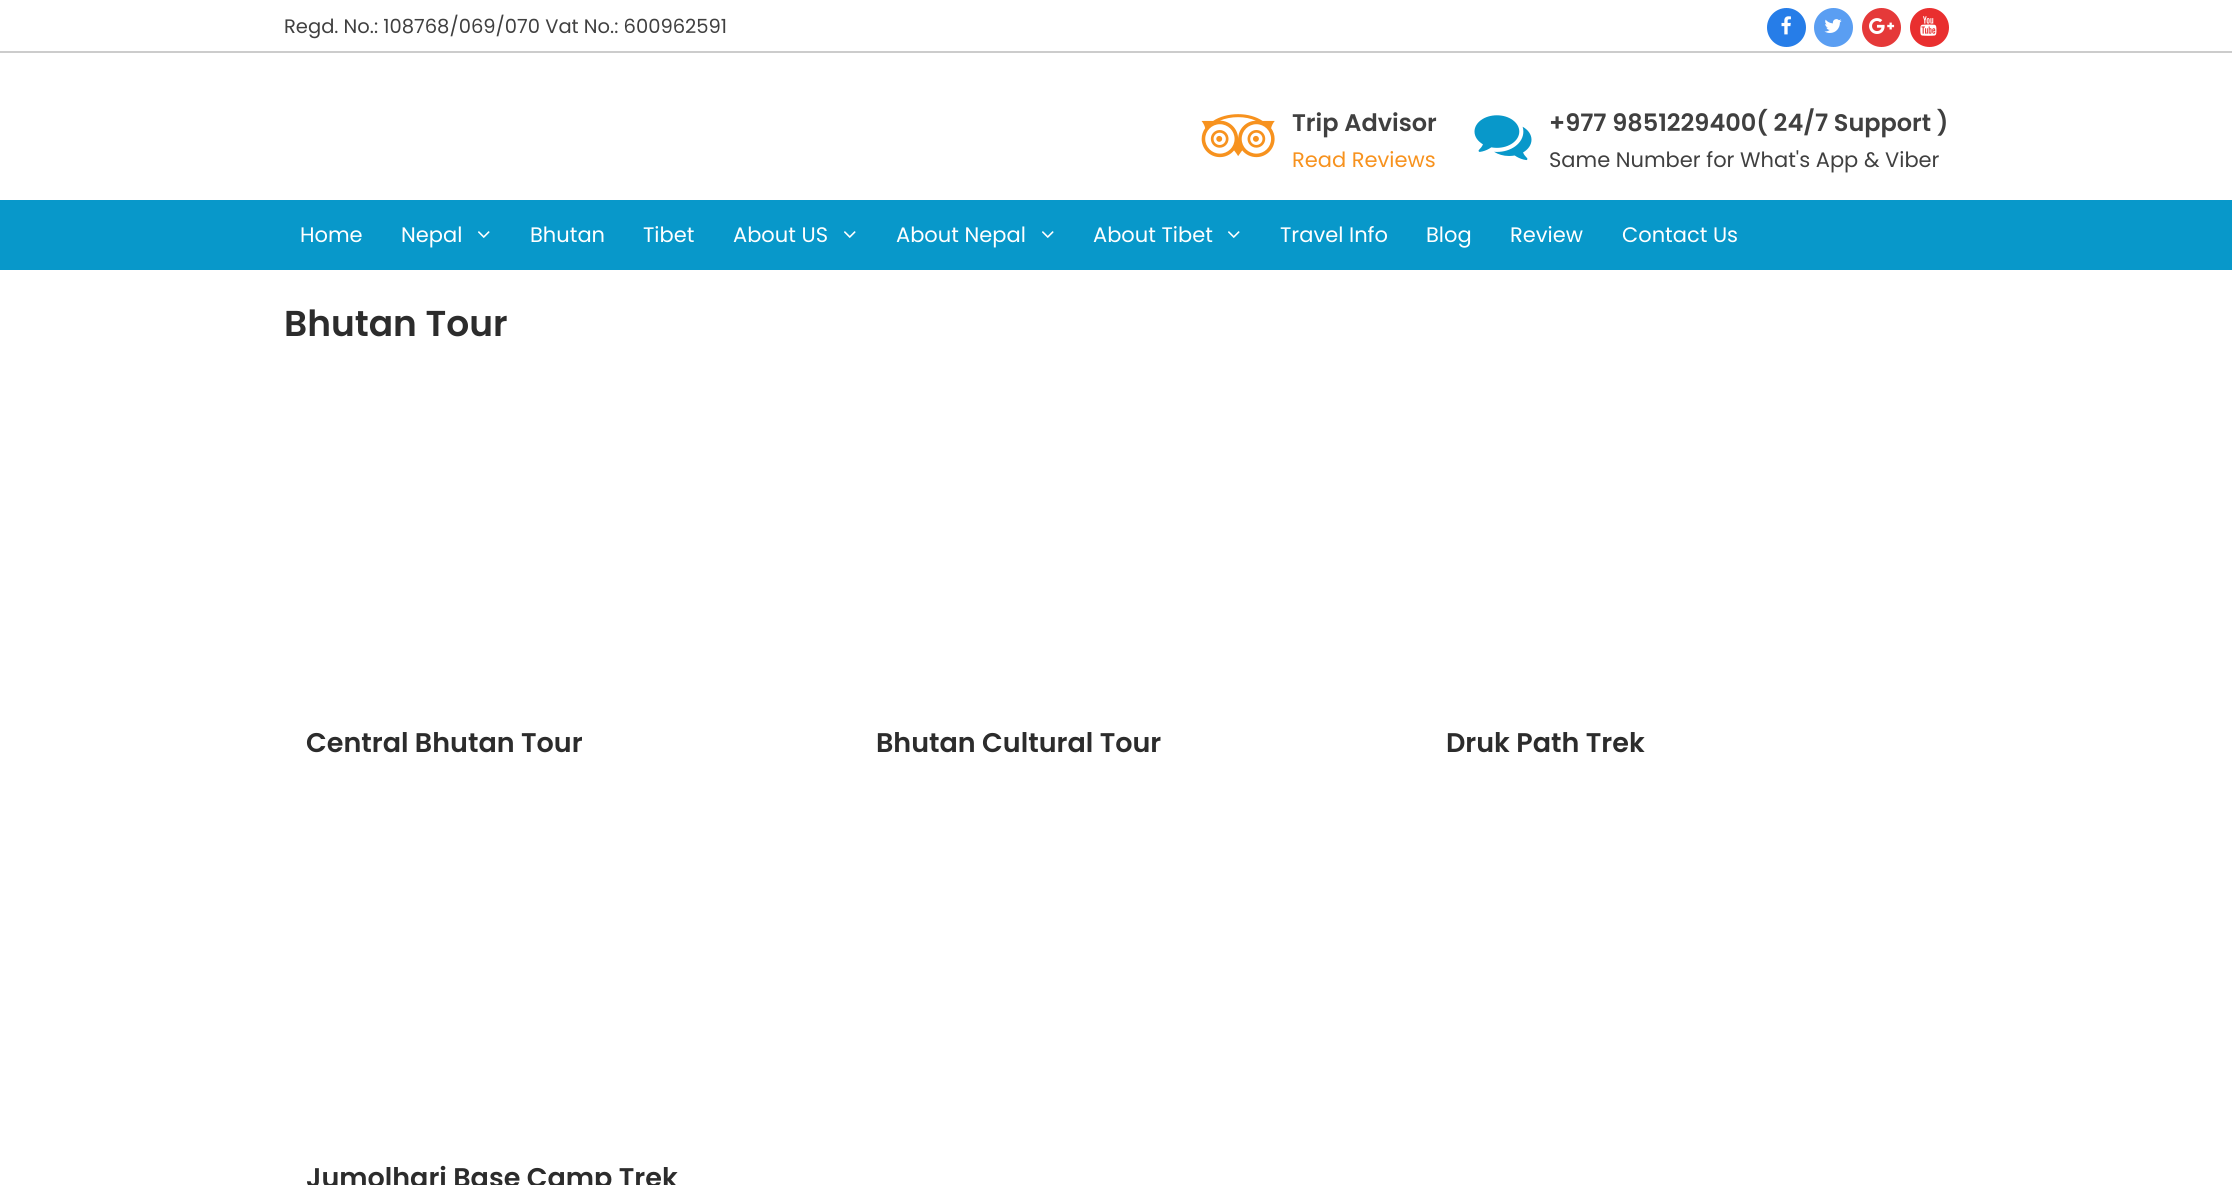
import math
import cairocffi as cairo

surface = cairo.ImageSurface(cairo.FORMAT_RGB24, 2232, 1185)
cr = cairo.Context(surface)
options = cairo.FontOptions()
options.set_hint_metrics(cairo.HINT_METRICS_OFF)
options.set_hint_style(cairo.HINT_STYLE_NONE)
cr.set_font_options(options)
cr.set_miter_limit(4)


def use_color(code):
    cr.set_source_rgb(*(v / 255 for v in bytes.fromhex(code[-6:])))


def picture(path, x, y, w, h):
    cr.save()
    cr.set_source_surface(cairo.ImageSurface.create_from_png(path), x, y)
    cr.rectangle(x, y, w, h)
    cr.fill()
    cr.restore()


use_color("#ffffff")
cr.paint()
use_color("#cccccc")
cr.rectangle(0, 51, 2232, 2)
cr.fill()
cr.select_font_face("Poppins")
cr.set_font_size(19.5)
use_color("#404040")
cr.move_to(284, 33)
cr.show_text("Regd. No.: 108768/069/070 Vat No.: 600962591")
use_color("#267de8")
cr.new_path()
cr.arc(1786.5, 27.5, 19.5, 0, 2 * math.pi)
cr.fill()
picture("img1.png", 1781, 16, 10, 19)
use_color("#5a9ef2")
cr.arc(1833.5, 27.5, 19.5, 0, 2 * math.pi)
cr.fill()
picture("img2.png", 1824, 19, 18, 14)
use_color("#e53939")
cr.arc(1881.5, 27.5, 19.5, 0, 2 * math.pi)
cr.fill()
picture("img3.png", 1869, 18, 26, 16)
use_color("#e92f2f")
cr.arc(1929.5, 27.5, 19.5, 0, 2 * math.pi)
cr.fill()
picture("img4.png", 1920, 16, 17, 20)
picture("img5.png", 1201, 114, 74, 44)
cr.select_font_face("Poppins SemiBold")
cr.set_font_size(24)
use_color("#404040")
cr.move_to(1292, 131)
cr.show_text("Trip Advisor")
cr.select_font_face("Poppins")
cr.set_font_size(21)
use_color("#f7921e")
cr.move_to(1292, 167)
cr.show_text("Read Reviews")
picture("img6.png", 1474, 115, 58, 46)
cr.select_font_face("Poppins SemiBold")
cr.set_font_size(24)
use_color("#404040")
cr.move_to(1549, 131)
cr.show_text("+977 9851229400( 24/7 Support )")
cr.select_font_face("Poppins")
cr.set_font_size(21)
cr.move_to(1549, 167)
cr.show_text("Same Number for What's App & Viber")
use_color("#0898ca")
cr.rectangle(0, 200, 2232, 70)
cr.fill()
use_color("#ffffff")
cr.move_to(300, 242)
cr.show_text("Home")
cr.move_to(401, 242)
cr.show_text("Nepal")
picture("img7.png", 478, 231, 12, 7)
cr.move_to(530, 242)
cr.show_text("Bhutan")
cr.move_to(643, 242)
cr.show_text("Tibet")
cr.move_to(733, 242)
cr.show_text("About US")
picture("img7.png", 844, 231, 12, 7)
cr.move_to(896, 242)
cr.show_text("About Nepal")
picture("img7.png", 1042, 231, 12, 7)
cr.move_to(1093, 242)
cr.show_text("About Tibet")
picture("img7.png", 1228, 231, 12, 7)
cr.move_to(1280, 242)
cr.show_text("Travel Info")
cr.move_to(1426, 242)
cr.show_text("Blog")
cr.move_to(1510, 242)
cr.show_text("Review")
cr.move_to(1622, 242)
cr.show_text("Contact Us")
cr.select_font_face("Poppins SemiBold")
cr.set_font_size(36)
use_color("#2c2c2c")
cr.move_to(284, 336)
cr.show_text("Bhutan Tour")
cr.set_font_size(27)
cr.move_to(306, 752)
cr.show_text("Central Bhutan Tour")
cr.move_to(876, 752)
cr.show_text("Bhutan Cultural Tour")
cr.move_to(1446, 752)
cr.show_text("Druk Path Trek")
cr.move_to(306, 1187)
cr.show_text("Jumolhari Base Camp Trek")
surface.write_to_png("result.png")
